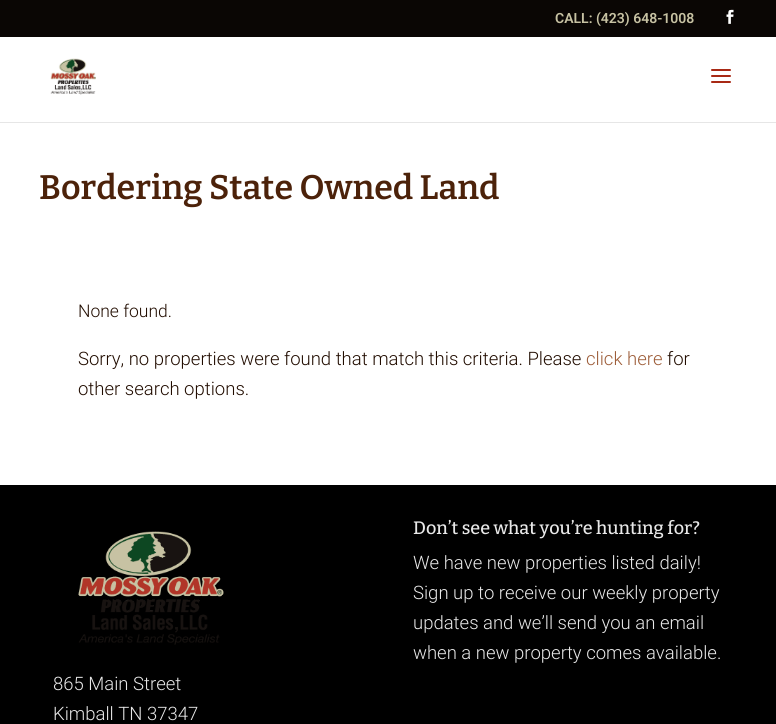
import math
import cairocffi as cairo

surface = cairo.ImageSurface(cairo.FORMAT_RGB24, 776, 724)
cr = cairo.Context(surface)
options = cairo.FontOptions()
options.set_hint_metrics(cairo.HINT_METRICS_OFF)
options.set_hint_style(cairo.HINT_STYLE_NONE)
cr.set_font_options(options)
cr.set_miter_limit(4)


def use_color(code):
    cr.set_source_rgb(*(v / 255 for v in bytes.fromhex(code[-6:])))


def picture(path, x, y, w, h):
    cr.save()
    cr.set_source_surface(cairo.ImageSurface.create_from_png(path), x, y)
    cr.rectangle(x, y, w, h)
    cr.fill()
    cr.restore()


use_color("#ffffff")
cr.paint()
use_color("#0a0604")
cr.rectangle(0, 0, 776, 37)
cr.fill()
cr.select_font_face("Roboto SemiBold")
cr.set_font_size(14)
use_color("#c7c2a3")
cr.move_to(555, 23)
cr.show_text("CALL: (423) 648-1008")
picture("img1.png", 726, 9, 8, 15)
use_color("#e6e6e6")
cr.rectangle(0, 122, 776, 1)
cr.fill()
picture("img2.png", 50, 58, 46, 37)
picture("img3.png", 711, 69, 20, 14)
cr.select_font_face("Bitter SemiBold")
cr.set_font_size(34)
use_color("#4c220a")
cr.move_to(39, 199)
cr.show_text("Bordering State Owned Land")
cr.select_font_face("Roboto Light")
cr.set_font_size(17.5)
use_color("#210c00")
cr.move_to(78, 317)
cr.show_text("None found.")
cr.set_font_size(18.5)
cr.move_to(78, 365)
cr.show_text("Sorry, no properties were found that match this criteria. Please")
use_color("#9d5d39")
cr.move_to(586, 365)
cr.show_text("click here")
use_color("#210c00")
cr.move_to(667, 365)
cr.show_text("for")
cr.move_to(78, 395)
cr.show_text("other search options.")
use_color("#000000")
cr.rectangle(0, 485, 776, 239)
cr.fill()
cr.select_font_face("Bitter Medium")
cr.set_font_size(18)
use_color("#e8e8e8")
cr.move_to(413, 534)
cr.show_text("Don’t see what you’re hunting for?")
cr.select_font_face("Roboto Light")
cr.set_font_size(18.5)
cr.move_to(413, 569)
cr.show_text("We have new properties listed daily!")
cr.move_to(413, 599)
cr.show_text("Sign up to receive our weekly property")
cr.move_to(413, 629)
cr.show_text("updates and we’ll send you an email")
cr.move_to(413, 659)
cr.show_text("when a new property comes available.")
picture("img4.png", 78, 531, 146, 114)
cr.move_to(53, 690)
cr.show_text("865 Main Street")
cr.move_to(53, 720)
cr.show_text("Kimball TN 37347")
surface.write_to_png("result.png")
